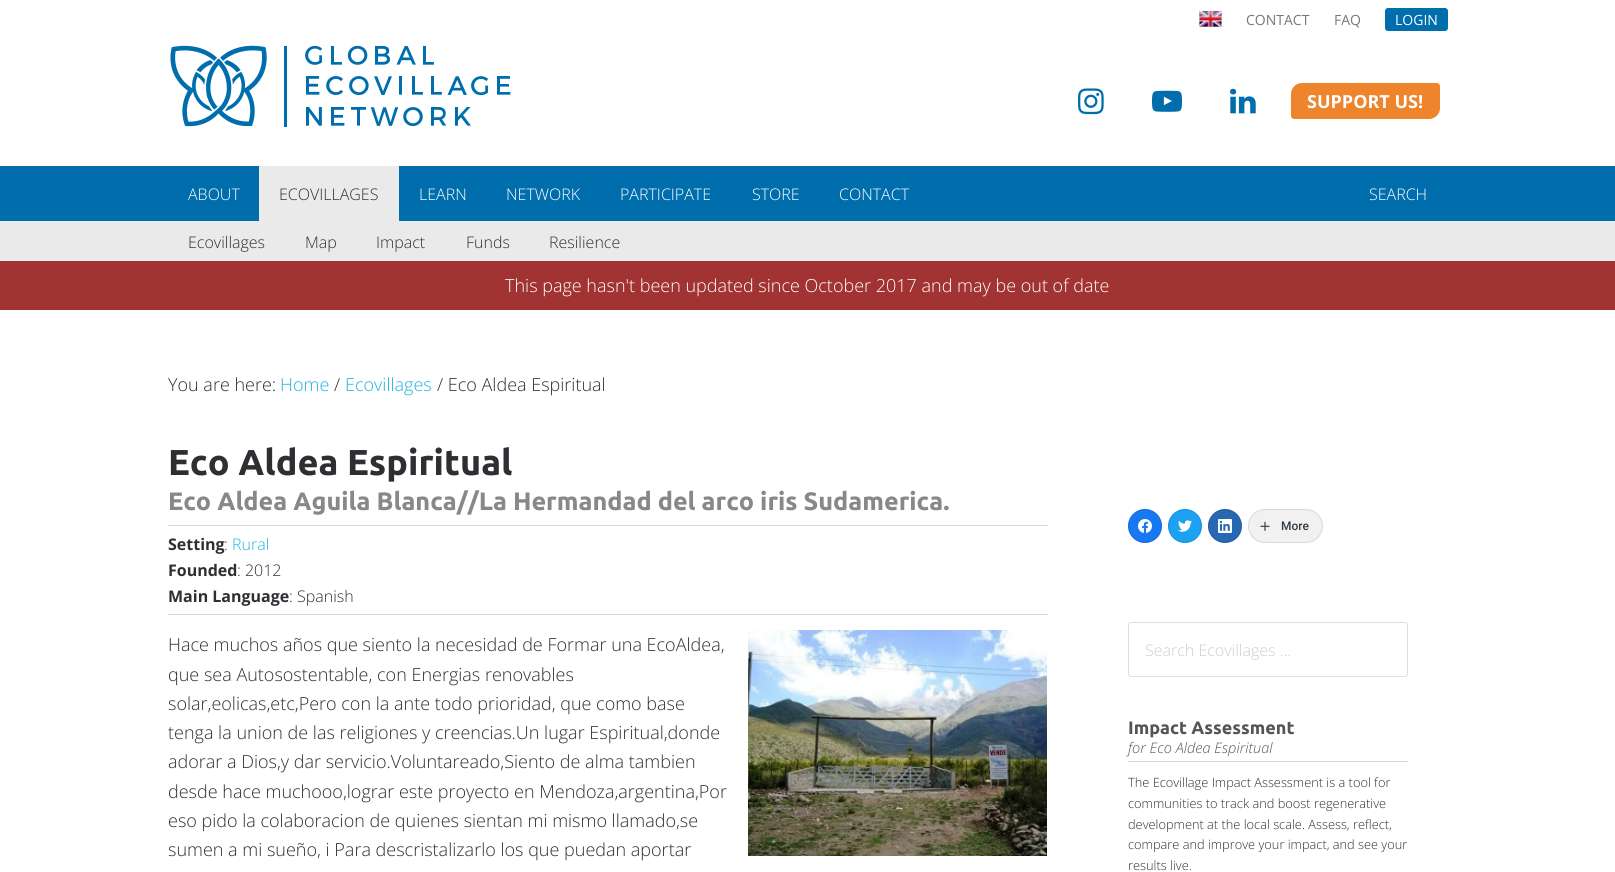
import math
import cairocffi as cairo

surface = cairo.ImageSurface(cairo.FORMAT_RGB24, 1615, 872)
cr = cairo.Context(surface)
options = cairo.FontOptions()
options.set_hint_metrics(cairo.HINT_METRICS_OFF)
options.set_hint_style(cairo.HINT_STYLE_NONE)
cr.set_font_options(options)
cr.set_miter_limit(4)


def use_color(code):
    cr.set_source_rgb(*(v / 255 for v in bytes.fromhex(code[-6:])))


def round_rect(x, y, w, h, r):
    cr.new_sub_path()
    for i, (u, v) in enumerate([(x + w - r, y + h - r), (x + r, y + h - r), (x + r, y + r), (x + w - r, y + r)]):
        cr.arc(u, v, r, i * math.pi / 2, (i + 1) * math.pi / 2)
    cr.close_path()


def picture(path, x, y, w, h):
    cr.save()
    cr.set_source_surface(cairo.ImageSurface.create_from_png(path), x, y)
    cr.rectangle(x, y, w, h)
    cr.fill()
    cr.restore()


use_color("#ffffff")
cr.paint()
picture("img1.png", 1199, 10, 23, 17)
cr.select_font_face("Open Sans")
cr.set_font_size(14)
use_color("#777777")
cr.move_to(1246, 25)
cr.show_text("CONTACT")
cr.move_to(1334, 25)
cr.show_text("FAQ")
use_color("#006dad")
round_rect(1385, 8, 63, 23, 3)
cr.fill()
use_color("#ffffff")
cr.move_to(1395, 25)
cr.show_text("LOGIN")
picture("img2.png", 170, 45, 341, 82)
picture("img3.png", 1078, 88, 26, 27)
picture("img4.png", 1152, 90, 30, 22)
picture("img5.png", 1230, 88, 26, 26)
use_color("#ee842b")
cr.new_path()
cr.move_to(1302, 83)
cr.line_to(1437, 83)
cr.curve_to(1438.5, 83, 1440, 84.5, 1440, 86)
cr.line_to(1440, 108)
cr.curve_to(1440, 114, 1435, 119, 1429, 119)
cr.line_to(1294, 119)
cr.curve_to(1292.5, 119, 1291, 117.5, 1291, 116)
cr.line_to(1291, 94)
cr.curve_to(1291, 88, 1296, 83, 1302, 83)
cr.close_path()
cr.fill()
cr.select_font_face("Open Sans", cairo.FONT_SLANT_NORMAL, cairo.FONT_WEIGHT_BOLD)
cr.set_font_size(18)
use_color("#ffffff")
cr.move_to(1307, 108)
cr.show_text("SUPPORT US!")
use_color("#006dad")
cr.rectangle(0, 166, 1615, 55)
cr.fill()
cr.select_font_face("Open Sans Light")
cr.set_font_size(16)
use_color("#ffffff")
cr.move_to(188, 200)
cr.show_text("ABOUT")
use_color("#eaeaea")
cr.rectangle(259, 166, 140, 55)
cr.fill()
use_color("#2e2f33")
cr.move_to(279, 200)
cr.show_text("ECOVILLAGES")
use_color("#ffffff")
cr.move_to(419, 200)
cr.show_text("LEARN")
cr.move_to(506, 200)
cr.show_text("NETWORK")
cr.move_to(620, 200)
cr.show_text("PARTICIPATE")
cr.move_to(752, 200)
cr.show_text("STORE")
cr.move_to(839, 200)
cr.show_text("CONTACT")
cr.move_to(1369, 200)
cr.show_text("SEARCH")
use_color("#eaeaea")
cr.rectangle(0, 221, 1615, 40)
cr.fill()
use_color("#2e2f33")
cr.move_to(188, 248)
cr.show_text("Ecovillages")
cr.move_to(305, 248)
cr.show_text("Map")
cr.move_to(376, 248)
cr.show_text("Impact")
cr.move_to(466, 248)
cr.show_text("Funds")
cr.move_to(549, 248)
cr.show_text("Resilience")
use_color("#a23333")
cr.rectangle(0, 261, 1615, 49)
cr.fill()
cr.set_font_size(18)
use_color("#ffffff")
cr.move_to(505, 292)
cr.show_text("This page hasn't been updated since October 2017 and may be out of date")
use_color("#2e2f33")
cr.move_to(168, 391)
cr.show_text("You are here:")
use_color("#1db3e0")
cr.move_to(280, 391)
cr.show_text("Home")
use_color("#2e2f33")
cr.move_to(334, 391)
cr.show_text("/")
use_color("#1db3e0")
cr.move_to(345, 391)
cr.show_text("Ecovillages")
use_color("#2e2f33")
cr.move_to(437, 391)
cr.show_text("/ Eco Aldea Espiritual")
use_color("#d5d5d5")
cr.rectangle(168, 525, 880, 1)
cr.fill()
cr.select_font_face("Ubuntu", cairo.FONT_SLANT_NORMAL, cairo.FONT_WEIGHT_BOLD)
cr.set_font_size(36)
use_color("#2e2f33")
cr.move_to(168, 475)
cr.show_text("Eco Aldea Espiritual")
cr.set_font_size(25.2)
use_color("#888888")
cr.move_to(168, 510)
cr.show_text("Eco Aldea Aguila Blanca//La Hermandad del arco iris Sudamerica.")
use_color("#d5d5d5")
cr.rectangle(168, 614, 880, 1)
cr.fill()
cr.select_font_face("Open Sans", cairo.FONT_SLANT_NORMAL, cairo.FONT_WEIGHT_BOLD)
cr.set_font_size(16)
use_color("#2e2f33")
cr.move_to(168, 550)
cr.show_text("Setting")
cr.select_font_face("Open Sans Light")
cr.move_to(224, 550)
cr.show_text(":")
use_color("#1db3e0")
cr.move_to(232, 550)
cr.show_text("Rural")
cr.select_font_face("Open Sans", cairo.FONT_SLANT_NORMAL, cairo.FONT_WEIGHT_BOLD)
use_color("#2e2f33")
cr.move_to(168, 576)
cr.show_text("Founded")
cr.select_font_face("Open Sans Light")
cr.move_to(237, 576)
cr.show_text(": 2012")
cr.select_font_face("Open Sans", cairo.FONT_SLANT_NORMAL, cairo.FONT_WEIGHT_BOLD)
cr.move_to(168, 602)
cr.show_text("Main Language")
cr.select_font_face("Open Sans Light")
cr.move_to(289, 602)
cr.show_text(": Spanish")
cr.set_font_size(18)
cr.move_to(168, 651)
cr.show_text("Hace muchos años que siento la necesidad de Formar una EcoAldea,")
cr.move_to(168, 681)
cr.show_text("que sea Autosostentable, con Energias renovables")
cr.move_to(168, 710)
cr.show_text("solar,eolicas,etc,Pero con la ante todo prioridad, que como base")
cr.move_to(168, 739)
cr.show_text("tenga la union de las religiones y creencias.Un lugar Espiritual,donde")
cr.move_to(168, 768)
cr.show_text("adorar a Dios,y dar servicio.Voluntareado,Siento de alma tambien")
cr.move_to(168, 798)
cr.show_text("desde hace muchooo,lograr este proyecto en Mendoza,argentina,Por")
cr.move_to(168, 827)
cr.show_text("eso pido la colaboracion de quienes sientan mi mismo llamado,se")
cr.move_to(168, 856)
cr.show_text("sumen a mi sueño, i Para descristalizarlo los que puedan aportar")
picture("img6.png", 748, 630, 299, 226)
use_color("#1877f2")
cr.arc(1145, 526, 17, 0, 2 * math.pi)
cr.fill()
cr.arc(1145, 526, 16.5, 0, 2 * math.pi)
cr.set_source_rgba(0, 0, 0, 0.1)
cr.set_line_width(1)
cr.stroke()
picture("img7.png", 1138, 519, 14, 14)
use_color("#1da1f2")
cr.arc(1185, 526, 17, 0, 2 * math.pi)
cr.fill()
cr.arc(1185, 526, 16.5, 0, 2 * math.pi)
cr.set_source_rgba(0, 0, 0, 0.1)
cr.stroke()
picture("img8.png", 1178, 520, 14, 12)
use_color("#2867b2")
cr.arc(1225, 526, 17, 0, 2 * math.pi)
cr.fill()
cr.arc(1225, 526, 16.5, 0, 2 * math.pi)
cr.set_source_rgba(0, 0, 0, 0.1)
cr.stroke()
picture("img9.png", 1218, 519, 14, 14)
use_color("#f1f1f1")
round_rect(1248, 509, 75, 34, 17)
cr.fill()
round_rect(1248.5, 509.5, 74, 33, 16.5)
cr.set_source_rgba(0, 0, 0, 0.1)
cr.stroke()
picture("img10.png", 1260, 521, 10, 10)
cr.select_font_face("Roboto Medium")
cr.set_font_size(12)
use_color("#323b43")
cr.move_to(1281, 530)
cr.show_text("More")
round_rect(1128.5, 622.5, 279, 54, 2.5)
use_color("#dddddd")
cr.stroke()
cr.select_font_face("Open Sans Light")
cr.set_font_size(16)
use_color("#cdcdcd")
cr.move_to(1145, 656)
cr.show_text("Search Ecovillages …")
use_color("#d5d5d5")
cr.rectangle(1128, 761, 280, 1)
cr.fill()
cr.select_font_face("Ubuntu", cairo.FONT_SLANT_NORMAL, cairo.FONT_WEIGHT_BOLD)
cr.set_font_size(18)
use_color("#555555")
cr.move_to(1128, 734)
cr.show_text("Impact Assessment")
cr.select_font_face("Open Sans Light", cairo.FONT_SLANT_ITALIC)
cr.set_font_size(14.5)
cr.move_to(1128, 753)
cr.show_text("for Eco Aldea Espiritual")
cr.select_font_face("Open Sans Light")
cr.set_font_size(12.8)
use_color("#2e2f33")
cr.move_to(1128, 787)
cr.show_text("The Ecovillage Impact Assessment is a tool for")
cr.move_to(1128, 808)
cr.show_text("communities to track and boost regenerative")
cr.move_to(1128, 829)
cr.show_text("development at the local scale. Assess, reflect,")
cr.move_to(1128, 849)
cr.show_text("compare and improve your impact, and see your")
cr.move_to(1128, 870)
cr.show_text("results live.")
surface.write_to_png("result.png")
